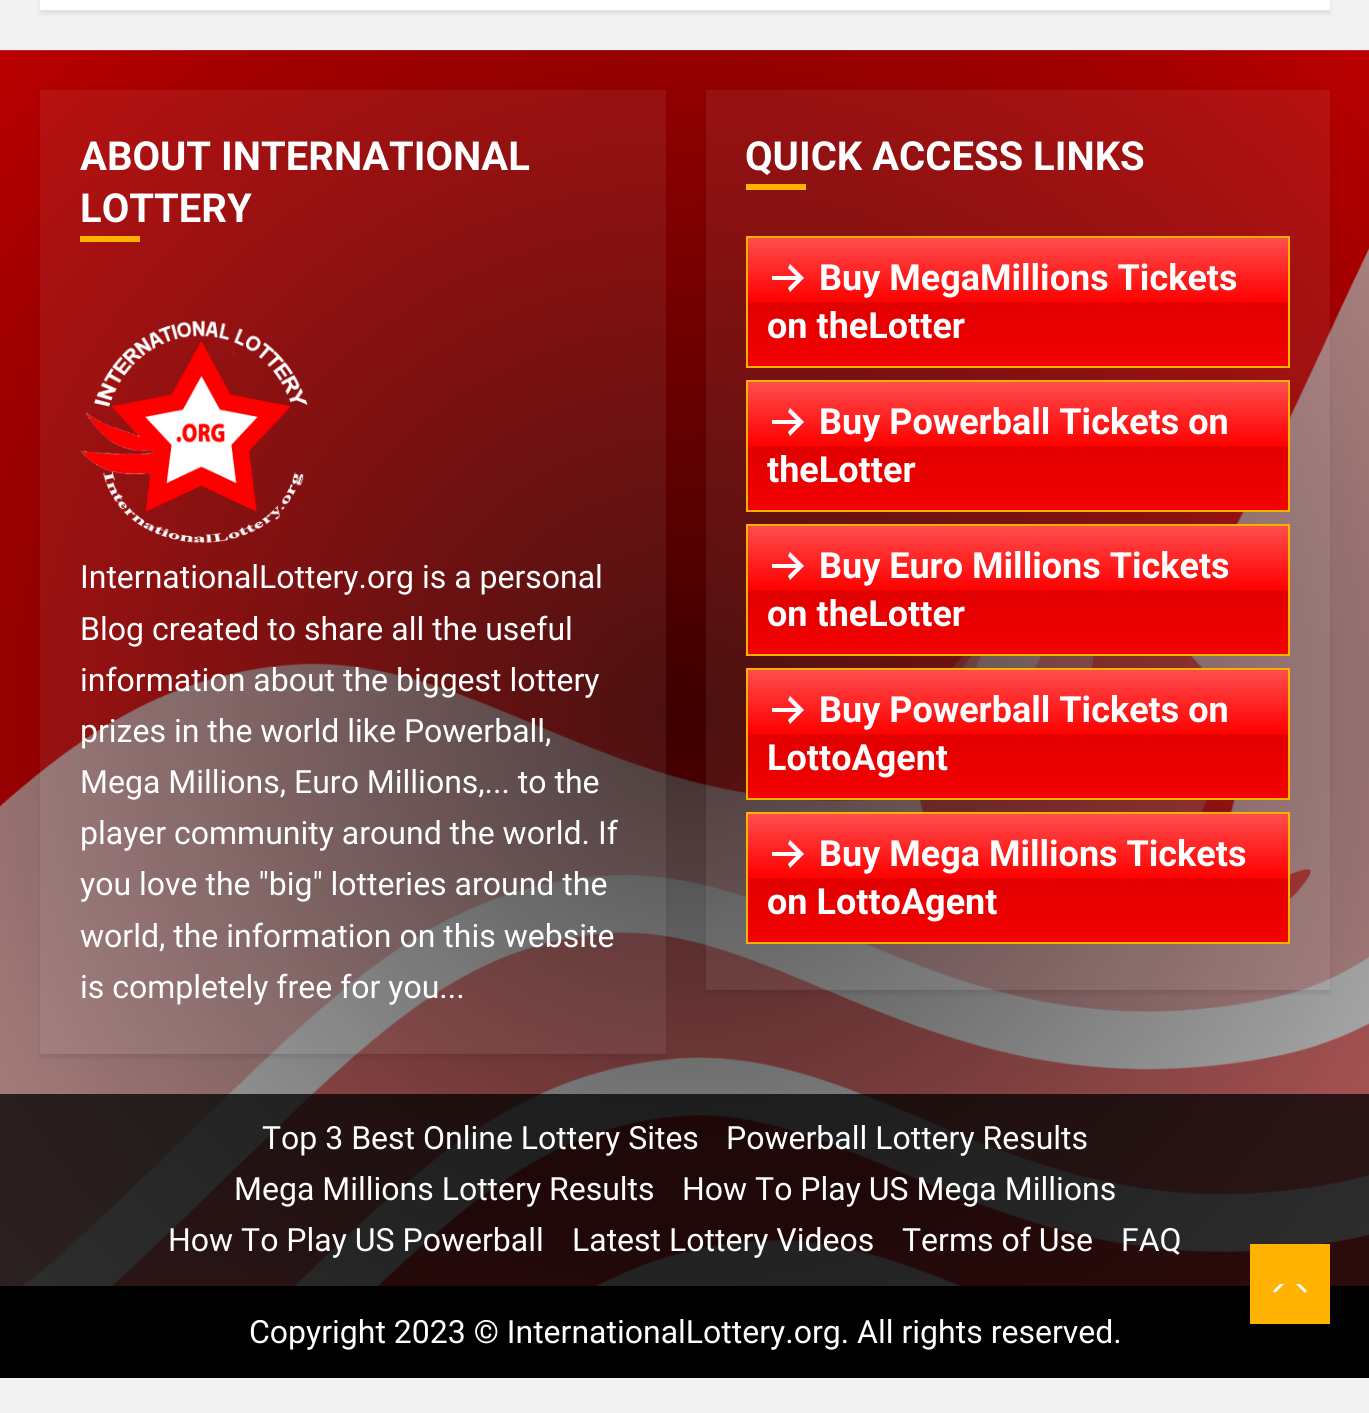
import math
import cairocffi as cairo

surface = cairo.ImageSurface(cairo.FORMAT_RGB24, 1369, 1413)
cr = cairo.Context(surface)
options = cairo.FontOptions()
options.set_hint_metrics(cairo.HINT_METRICS_OFF)
options.set_hint_style(cairo.HINT_STYLE_NONE)
cr.set_font_options(options)
cr.set_miter_limit(4)


def use_color(code):
    cr.set_source_rgb(*(v / 255 for v in bytes.fromhex(code[-6:])))


def round_rect(x, y, w, h, r):
    cr.new_sub_path()
    for i, (u, v) in enumerate([(x + w - r, y + h - r), (x + r, y + h - r), (x + r, y + r), (x + w - r, y + r)]):
        cr.arc(u, v, r, i * math.pi / 2, (i + 1) * math.pi / 2)
    cr.close_path()


def shadow(x, y, w, h, r, blur, alpha):
    cr.push_group_with_content(cairo.CONTENT_ALPHA)
    cr.set_operator(cairo.OPERATOR_SOURCE)
    for i in range(15, -16, -2):
        e = blur * i / 6
        if min(w, h) + 2 * e > 0:
            cr.set_source_rgba(0, 0, 0, alpha * math.erfc((i - 1) / 8.5) / 2)
            round_rect(x - e, y - e, w + 2 * e, h + 2 * e, max(0, min(r + e + blur * .6, min(w, h) / 2 + e)))
            cr.fill()
    cr.mask(cr.pop_group())


def picture(path, x, y, w, h):
    cr.save()
    cr.set_source_surface(cairo.ImageSurface.create_from_png(path), x, y)
    cr.rectangle(x, y, w, h)
    cr.fill()
    cr.restore()


use_color("#f2f2f2")
cr.paint()
use_color("#000000")
shadow(40, -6, 1290, 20, 0, 2, 0.08)
use_color("#ffffff")
cr.rectangle(40, 0, 1290, 10)
cr.fill()
picture("img1.png", 0, 50, 1369, 1236)
gradient = cairo.RadialGradient(0, 0, 0, 0, 0, 1)
gradient.set_matrix(cairo.Matrix(1 / 969, 0, 0, 1 / 939, -1 * 685 / 969, -1 * 714 / 939))
gradient.add_color_stop_rgba(0, 0, 0, 0, 0.75)
gradient.add_color_stop_rgba(0.5, 0, 0, 0, 0.5)
gradient.add_color_stop_rgba(1, 0, 0, 0, 0.25)
cr.set_source(gradient)
cr.rectangle(0, 50, 1369, 1236)
cr.fill()
cr.save()
cr.set_fill_rule(cairo.FILL_RULE_EVEN_ODD)
cr.new_path()
cr.move_to(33, 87)
cr.line_to(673, 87)
cr.line_to(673, 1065)
cr.line_to(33, 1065)
cr.close_path()
cr.move_to(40, 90)
cr.line_to(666, 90)
cr.line_to(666, 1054)
cr.line_to(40, 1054)
cr.close_path()
cr.clip()
use_color("#000000")
shadow(40, 94, 626, 964, 0, 2, 0.08)
cr.restore()
cr.set_source_rgba(1, 1, 1, 0.07)
cr.rectangle(40, 90, 626, 964)
cr.fill()
cr.select_font_face("Roboto", cairo.FONT_SLANT_NORMAL, cairo.FONT_WEIGHT_BOLD)
cr.set_font_size(40)
use_color("#ffffff")
cr.move_to(80, 170)
cr.show_text("ABOUT INTERNATIONAL")
cr.move_to(80, 222)
cr.show_text("LOTTERY")
use_color("#ffb200")
cr.rectangle(80, 236, 60, 6)
cr.fill()
picture("img2.png", 80, 320, 228, 223)
cr.select_font_face("Roboto")
cr.set_font_size(32)
use_color("#ffffff")
cr.move_to(80, 588)
cr.show_text("InternationalLottery.org is a personal")
cr.move_to(80, 640)
cr.show_text("Blog created to share all the useful")
cr.move_to(80, 691)
cr.show_text("information about the biggest lottery")
cr.move_to(80, 742)
cr.show_text("prizes in the world like Powerball,")
cr.move_to(80, 793)
cr.show_text("Mega Millions, Euro Millions,... to the")
cr.move_to(80, 844)
cr.show_text("player community around the world. If")
cr.move_to(80, 895)
cr.show_text("you love the \"big\" lotteries around the")
cr.move_to(80, 947)
cr.show_text("world, the information on this website")
cr.move_to(80, 998)
cr.show_text("is completely free for you...")
cr.save()
cr.set_fill_rule(cairo.FILL_RULE_EVEN_ODD)
cr.new_path()
cr.move_to(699, 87)
cr.line_to(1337, 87)
cr.line_to(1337, 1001)
cr.line_to(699, 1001)
cr.close_path()
cr.move_to(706, 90)
cr.line_to(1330, 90)
cr.line_to(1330, 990)
cr.line_to(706, 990)
cr.close_path()
cr.clip()
use_color("#000000")
shadow(706, 94, 624, 900, 0, 2, 0.08)
cr.restore()
cr.set_source_rgba(1, 1, 1, 0.07)
cr.rectangle(706, 90, 624, 900)
cr.fill()
cr.select_font_face("Roboto", cairo.FONT_SLANT_NORMAL, cairo.FONT_WEIGHT_BOLD)
cr.set_font_size(40)
use_color("#ffffff")
cr.move_to(745, 170)
cr.show_text("QUICK ACCESS LINKS")
use_color("#ffb200")
cr.rectangle(746, 184, 60, 6)
cr.fill()
gradient = cairo.LinearGradient(1018, 238, 1018, 366)
gradient.add_color_stop_rgba(0, 1, 0.302, 0.302, 1)
gradient.add_color_stop_rgba(0.5, 1, 0, 0, 1)
gradient.add_color_stop_rgba(0.51, 0.878, 0, 0, 1)
gradient.add_color_stop_rgba(1, 0.961, 0, 0, 1)
cr.set_source(gradient)
cr.rectangle(748, 238, 540, 128)
cr.fill()
cr.rectangle(747, 237, 542, 130)
use_color("#ffb200")
cr.stroke()
use_color("#ffffff")
cr.new_path()
cr.move_to(772, 280)
cr.line_to(772, 276)
cr.line_to(796, 276)
cr.line_to(788, 268)
cr.line_to(790, 264)
cr.line_to(804, 278)
cr.line_to(790, 292)
cr.line_to(788, 288)
cr.line_to(796, 280)
cr.close_path()
cr.fill()
cr.set_font_size(36)
cr.move_to(819, 290)
cr.show_text("Buy MegaMillions Tickets")
cr.move_to(767, 338)
cr.show_text("on theLotter")
gradient = cairo.LinearGradient(1018, 382, 1018, 510)
gradient.add_color_stop_rgba(0, 1, 0.302, 0.302, 1)
gradient.add_color_stop_rgba(0.5, 1, 0, 0, 1)
gradient.add_color_stop_rgba(0.51, 0.878, 0, 0, 1)
gradient.add_color_stop_rgba(1, 0.961, 0, 0, 1)
cr.set_source(gradient)
cr.rectangle(748, 382, 540, 128)
cr.fill()
cr.rectangle(747, 381, 542, 130)
use_color("#ffb200")
cr.stroke()
use_color("#ffffff")
cr.new_path()
cr.move_to(772, 424)
cr.line_to(772, 420)
cr.line_to(796, 420)
cr.line_to(788, 412)
cr.line_to(790, 408)
cr.line_to(804, 422)
cr.line_to(790, 436)
cr.line_to(788, 432)
cr.line_to(796, 424)
cr.close_path()
cr.fill()
cr.move_to(819, 434)
cr.show_text("Buy Powerball Tickets on")
cr.move_to(767, 482)
cr.show_text("theLotter")
gradient = cairo.LinearGradient(1018, 526, 1018, 654)
gradient.add_color_stop_rgba(0, 1, 0.302, 0.302, 1)
gradient.add_color_stop_rgba(0.5, 1, 0, 0, 1)
gradient.add_color_stop_rgba(0.51, 0.878, 0, 0, 1)
gradient.add_color_stop_rgba(1, 0.961, 0, 0, 1)
cr.set_source(gradient)
cr.rectangle(748, 526, 540, 128)
cr.fill()
cr.rectangle(747, 525, 542, 130)
use_color("#ffb200")
cr.stroke()
use_color("#ffffff")
cr.new_path()
cr.move_to(772, 568)
cr.line_to(772, 564)
cr.line_to(796, 564)
cr.line_to(788, 556)
cr.line_to(790, 552)
cr.line_to(804, 566)
cr.line_to(790, 580)
cr.line_to(788, 576)
cr.line_to(796, 568)
cr.close_path()
cr.fill()
cr.move_to(819, 578)
cr.show_text("Buy Euro Millions Tickets")
cr.move_to(767, 626)
cr.show_text("on theLotter")
gradient = cairo.LinearGradient(1018, 670, 1018, 798)
gradient.add_color_stop_rgba(0, 1, 0.302, 0.302, 1)
gradient.add_color_stop_rgba(0.5, 1, 0, 0, 1)
gradient.add_color_stop_rgba(0.51, 0.878, 0, 0, 1)
gradient.add_color_stop_rgba(1, 0.961, 0, 0, 1)
cr.set_source(gradient)
cr.rectangle(748, 670, 540, 128)
cr.fill()
cr.rectangle(747, 669, 542, 130)
use_color("#ffb200")
cr.stroke()
use_color("#ffffff")
cr.new_path()
cr.move_to(772, 712)
cr.line_to(772, 708)
cr.line_to(796, 708)
cr.line_to(788, 700)
cr.line_to(790, 696)
cr.line_to(804, 710)
cr.line_to(790, 724)
cr.line_to(788, 720)
cr.line_to(796, 712)
cr.close_path()
cr.fill()
cr.move_to(819, 722)
cr.show_text("Buy Powerball Tickets on")
cr.move_to(767, 770)
cr.show_text("LottoAgent")
gradient = cairo.LinearGradient(1018, 814, 1018, 942)
gradient.add_color_stop_rgba(0, 1, 0.302, 0.302, 1)
gradient.add_color_stop_rgba(0.5, 1, 0, 0, 1)
gradient.add_color_stop_rgba(0.51, 0.878, 0, 0, 1)
gradient.add_color_stop_rgba(1, 0.961, 0, 0, 1)
cr.set_source(gradient)
cr.rectangle(748, 814, 540, 128)
cr.fill()
cr.rectangle(747, 813, 542, 130)
use_color("#ffb200")
cr.stroke()
use_color("#ffffff")
cr.new_path()
cr.move_to(772, 856)
cr.line_to(772, 852)
cr.line_to(796, 852)
cr.line_to(788, 844)
cr.line_to(790, 840)
cr.line_to(804, 854)
cr.line_to(790, 868)
cr.line_to(788, 864)
cr.line_to(796, 856)
cr.close_path()
cr.fill()
cr.move_to(819, 866)
cr.show_text("Buy Mega Millions Tickets")
cr.move_to(767, 914)
cr.show_text("on LottoAgent")
cr.set_source_rgba(0, 0, 0, 0.75)
cr.rectangle(0, 1094, 1369, 192)
cr.fill()
cr.select_font_face("Roboto")
cr.set_font_size(32)
use_color("#ffffff")
cr.move_to(262, 1149)
cr.show_text("Top 3 Best Online Lottery Sites")
cr.move_to(726, 1149)
cr.show_text("Powerball Lottery Results")
cr.move_to(234, 1200)
cr.show_text("Mega Millions Lottery Results")
cr.move_to(682, 1200)
cr.show_text("How To Play US Mega Millions")
cr.move_to(168, 1251)
cr.show_text("How To Play US Powerball")
cr.move_to(572, 1251)
cr.show_text("Latest Lottery Videos")
cr.move_to(902, 1251)
cr.show_text("Terms of Use")
cr.move_to(1121, 1251)
cr.show_text("FAQ")
use_color("#000000")
cr.rectangle(0, 1286, 1369, 92)
cr.fill()
use_color("#ffffff")
cr.move_to(249, 1343)
cr.show_text("Copyright 2023 © InternationalLottery.org. All rights reserved.")
use_color("#ffb200")
cr.rectangle(1250, 1244, 80, 80)
cr.fill()
use_color("#ffffff")
cr.new_path()
cr.move_to(1280, 1294)
cr.line_to(1300, 1294)
cr.curve_to(1303, 1294, 1305.5, 1293, 1307, 1291)
cr.line_to(1300, 1284)
cr.line_to(1280, 1284)
cr.line_to(1273, 1291)
cr.curve_to(1274.5, 1293, 1277, 1294, 1280, 1294)
cr.close_path()
cr.fill()
use_color("#ffb200")
cr.new_path()
cr.move_to(1310, 1298)
cr.line_to(1270, 1298)
cr.line_to(1290, 1278)
cr.close_path()
cr.fill()
surface.write_to_png("result.png")
